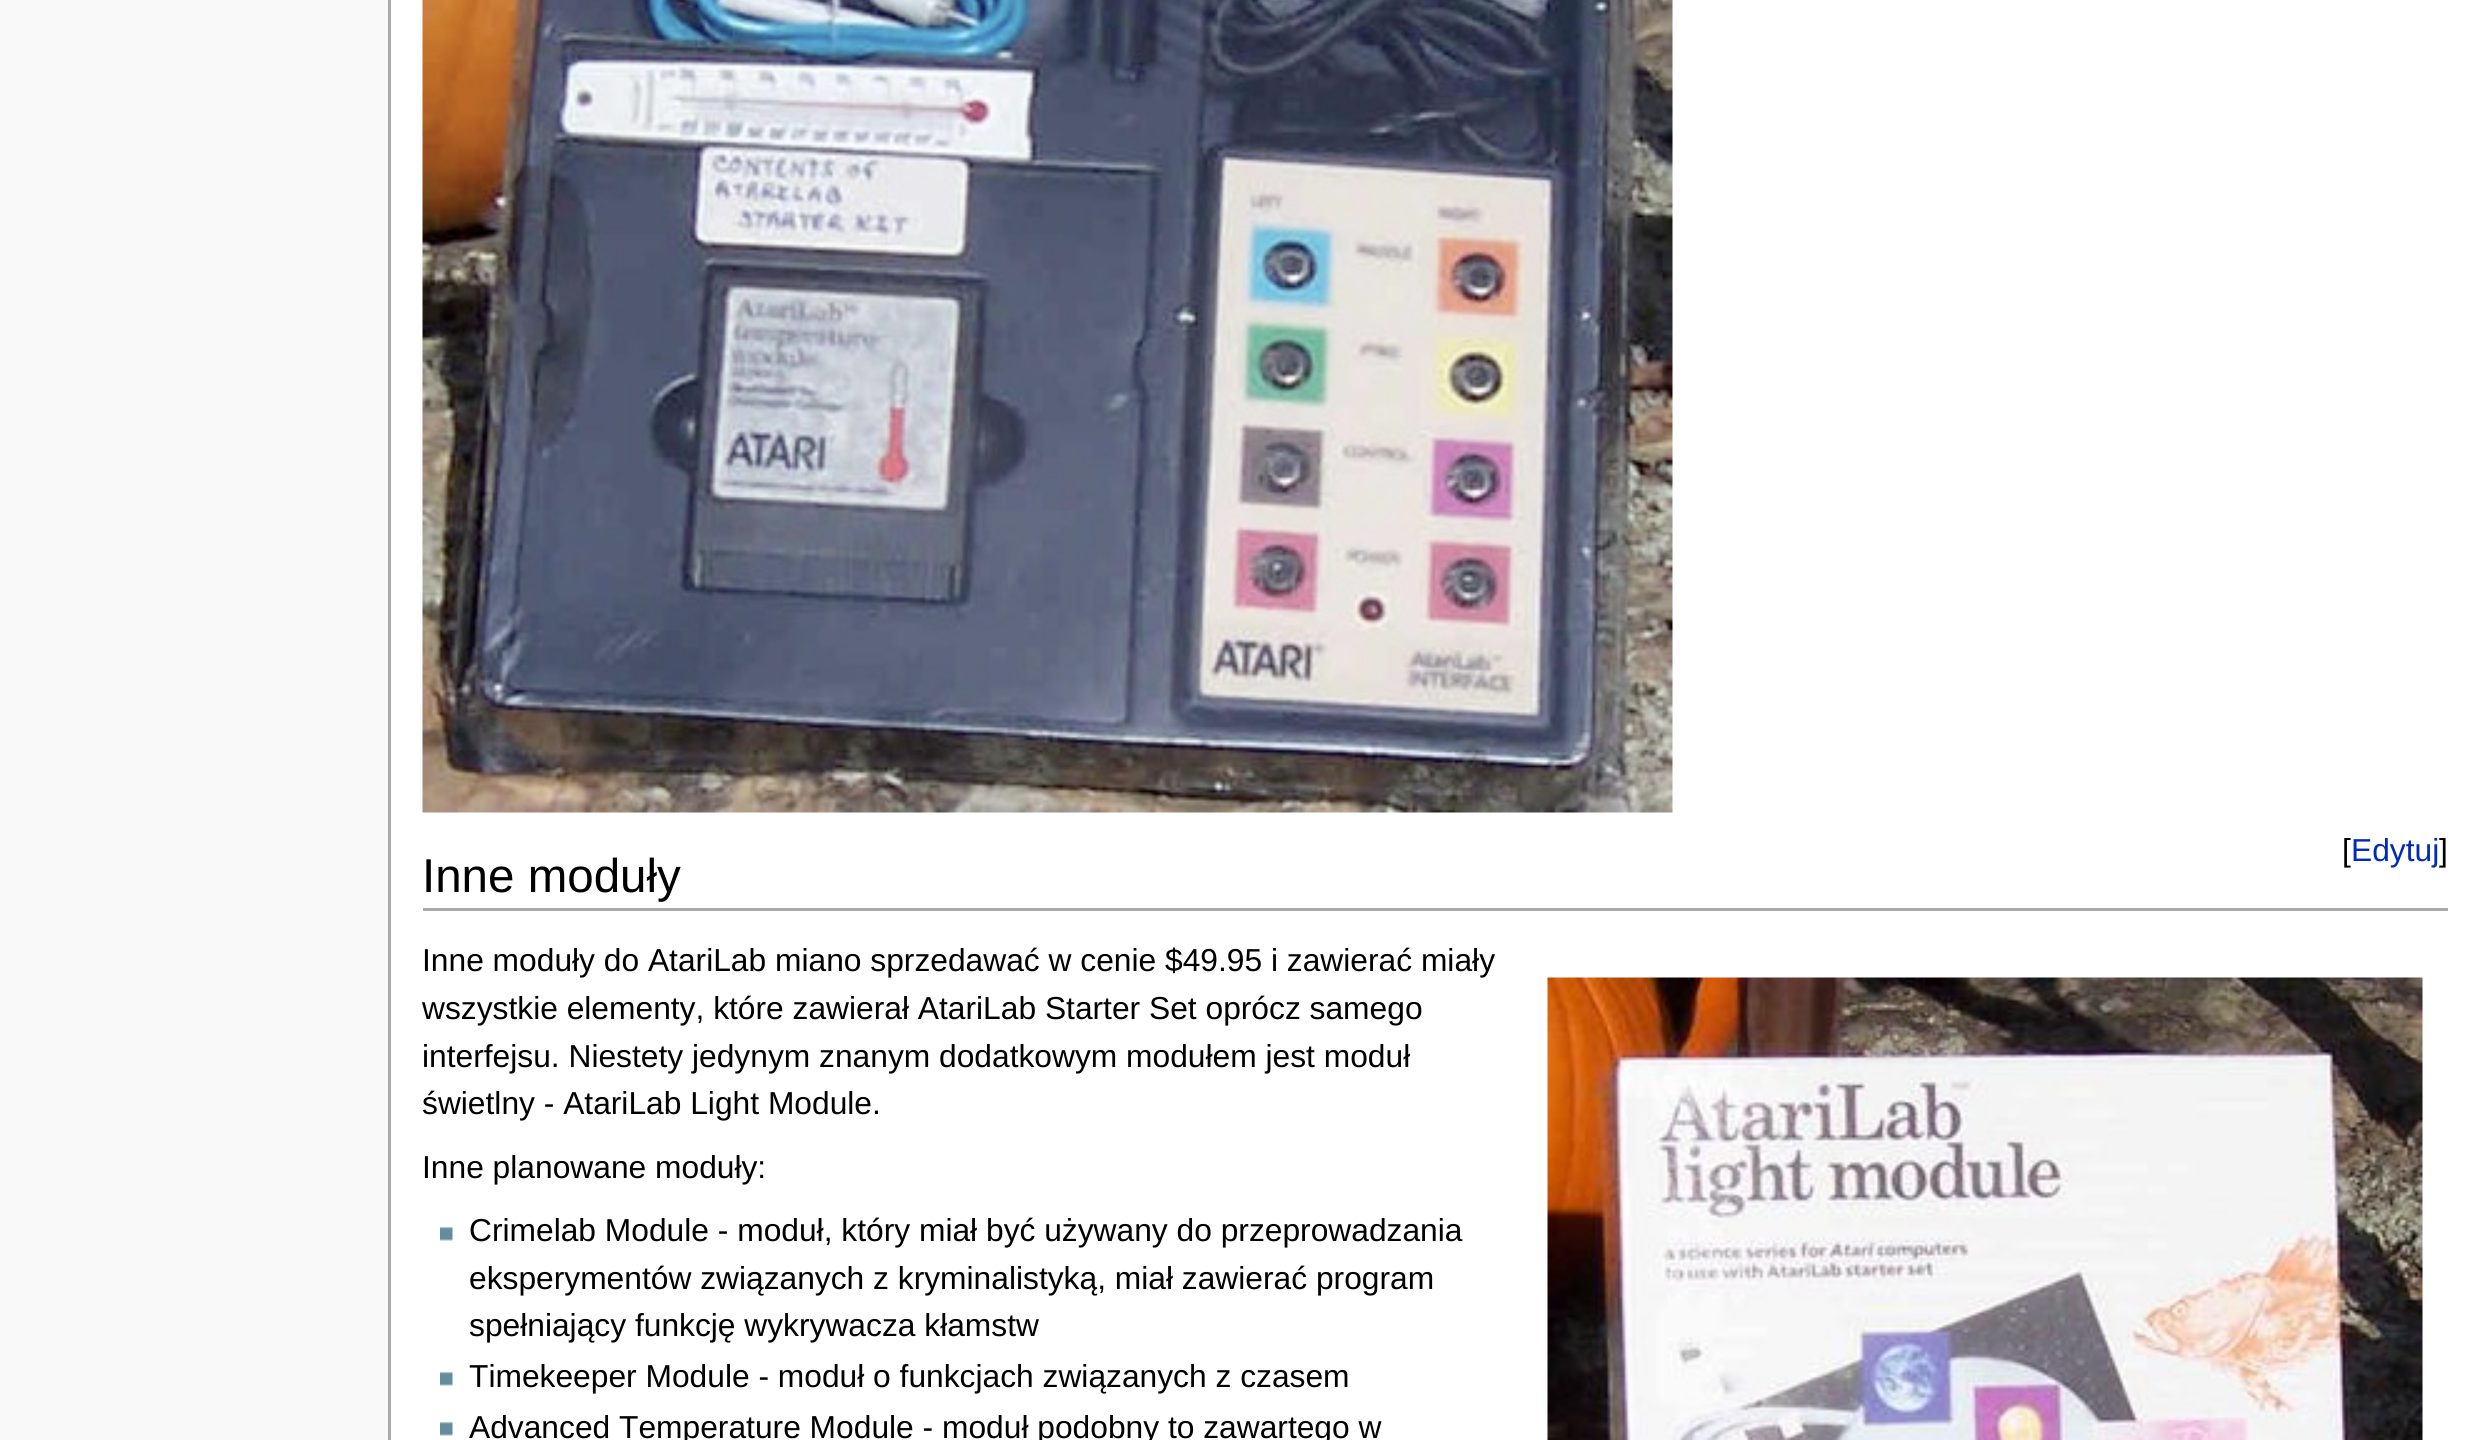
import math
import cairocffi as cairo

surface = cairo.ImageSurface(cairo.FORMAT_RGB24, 2480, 1440)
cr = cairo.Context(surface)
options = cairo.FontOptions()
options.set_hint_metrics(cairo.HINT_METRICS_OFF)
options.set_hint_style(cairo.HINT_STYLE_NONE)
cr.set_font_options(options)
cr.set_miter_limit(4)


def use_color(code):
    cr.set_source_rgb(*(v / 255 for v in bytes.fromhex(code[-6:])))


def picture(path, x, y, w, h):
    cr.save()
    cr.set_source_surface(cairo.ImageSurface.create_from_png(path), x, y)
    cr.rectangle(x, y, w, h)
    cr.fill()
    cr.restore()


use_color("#f9f9f9")
cr.paint()
use_color("#ffffff")
cr.rectangle(391, 0, 2089, 1440)
cr.fill()
use_color("#aaaaaa")
cr.rectangle(388, 0, 3, 1440)
cr.fill()
picture("img1.png", 422, 0, 1251, 813)
cr.select_font_face("Liberation Sans")
cr.set_font_size(31.75)
use_color("#000000")
cr.move_to(2342, 861)
cr.show_text("[")
use_color("#002bb8")
cr.move_to(2351, 861)
cr.show_text("Edytuj")
use_color("#000000")
cr.move_to(2439, 861)
cr.show_text("]")
use_color("#aaaaaa")
cr.rectangle(423, 908, 2025, 3)
cr.fill()
cr.set_font_size(47.5)
use_color("#000000")
cr.move_to(422, 892)
cr.show_text("Inne moduły")
cr.set_font_size(31.75)
cr.move_to(422, 971)
cr.show_text("Inne moduły do AtariLab miano sprzedawać w cenie $49.95 i zawierać miały")
cr.move_to(422, 1019)
cr.show_text("wszystkie elementy, które zawierał AtariLab Starter Set oprócz samego")
cr.move_to(422, 1067)
cr.show_text("interfejsu. Niestety jedynym znanym dodatkowym modułem jest moduł")
cr.move_to(422, 1114)
cr.show_text("świetlny - AtariLab Light Module.")
picture("img2.png", 1547, 977, 876, 463)
cr.move_to(422, 1178)
cr.show_text("Inne planowane moduły:")
picture("img3.png", 440, 1226, 13, 15)
cr.move_to(469, 1241)
cr.show_text("Crimelab Module - moduł, który miał być używany do przeprowadzania")
cr.move_to(469, 1289)
cr.show_text("eksperymentów związanych z kryminalistyką, miał zawierać program")
cr.move_to(469, 1336)
cr.show_text("spełniający funkcję wykrywacza kłamstw")
picture("img3.png", 440, 1371, 13, 15)
cr.move_to(469, 1387)
cr.show_text("Timekeeper Module - moduł o funkcjach związanych z czasem")
picture("img3.png", 440, 1421, 13, 15)
cr.move_to(469, 1438)
cr.show_text("Advanced Temperature Module - moduł podobny to zawartego w")
surface.write_to_png("result.png")
